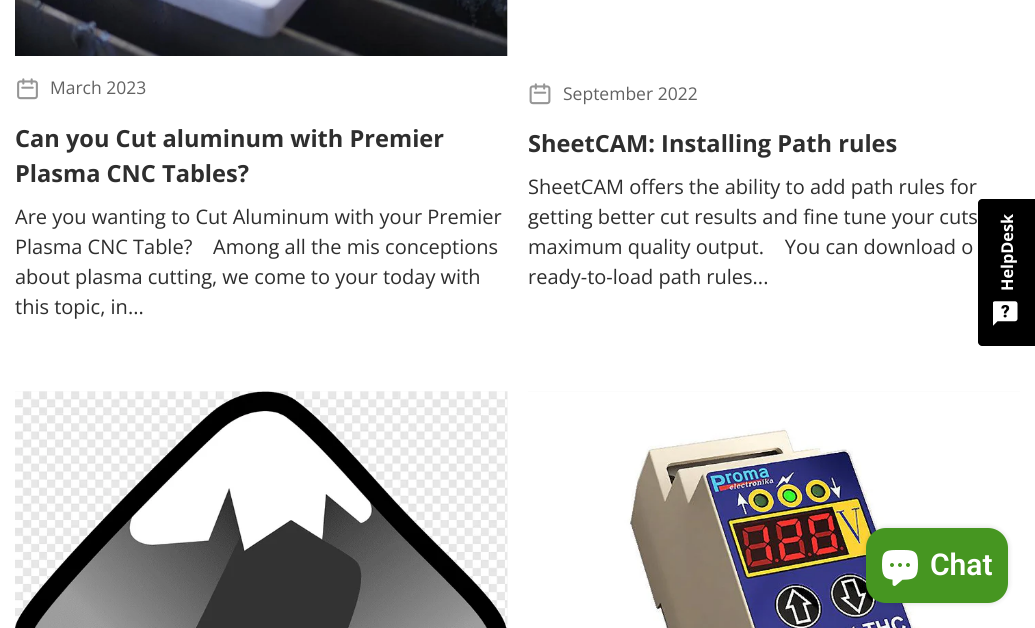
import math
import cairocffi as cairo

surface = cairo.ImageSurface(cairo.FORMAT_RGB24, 1035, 628)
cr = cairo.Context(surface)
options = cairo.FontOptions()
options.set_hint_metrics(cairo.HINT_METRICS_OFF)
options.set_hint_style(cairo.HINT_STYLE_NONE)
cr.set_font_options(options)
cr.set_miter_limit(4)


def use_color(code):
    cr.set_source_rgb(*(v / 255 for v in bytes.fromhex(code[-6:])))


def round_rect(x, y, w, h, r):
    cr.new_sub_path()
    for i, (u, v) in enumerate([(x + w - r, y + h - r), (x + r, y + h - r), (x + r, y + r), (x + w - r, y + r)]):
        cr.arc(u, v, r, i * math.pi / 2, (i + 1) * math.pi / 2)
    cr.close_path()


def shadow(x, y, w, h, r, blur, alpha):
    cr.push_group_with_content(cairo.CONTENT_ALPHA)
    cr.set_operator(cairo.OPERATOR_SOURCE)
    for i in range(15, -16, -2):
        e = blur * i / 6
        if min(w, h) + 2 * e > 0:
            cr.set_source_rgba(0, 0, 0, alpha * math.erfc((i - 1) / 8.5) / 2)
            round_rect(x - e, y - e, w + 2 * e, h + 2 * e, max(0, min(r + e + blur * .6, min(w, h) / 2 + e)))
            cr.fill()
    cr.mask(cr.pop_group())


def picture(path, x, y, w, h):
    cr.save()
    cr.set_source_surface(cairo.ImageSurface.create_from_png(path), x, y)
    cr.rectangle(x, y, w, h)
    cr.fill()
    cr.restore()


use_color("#ffffff")
cr.paint()
use_color("#f7f7f7")
cr.rectangle(507, 0, 1, 56)
cr.fill()
picture("img1.png", 15, 0, 493, 56)
picture("img2.png", 17, 78, 21, 22)
cr.select_font_face("Open Sans")
cr.set_font_size(17.5)
use_color("#626262")
cr.move_to(50, 94)
cr.show_text("March 2023")
cr.select_font_face("Open Sans", cairo.FONT_SLANT_NORMAL, cairo.FONT_WEIGHT_BOLD)
cr.set_font_size(23.6)
use_color("#2e2e2e")
cr.move_to(15, 147)
cr.show_text("Can you Cut aluminum with Premier")
cr.move_to(15, 182)
cr.show_text("Plasma CNC Tables?")
cr.select_font_face("Open Sans")
cr.set_font_size(20)
cr.move_to(15, 224)
cr.show_text("Are you wanting to Cut Aluminum with your Premier")
cr.move_to(15, 254)
cr.show_text("Plasma CNC Table?    Among all the mis conceptions")
cr.move_to(15, 284)
cr.show_text("about plasma cutting, we come to your today with")
cr.move_to(15, 314)
cr.show_text("this topic, in...")
picture("img3.png", 529, 83, 22, 22)
cr.set_font_size(17.5)
use_color("#626262")
cr.move_to(563, 100)
cr.show_text("September 2022")
cr.select_font_face("Open Sans", cairo.FONT_SLANT_NORMAL, cairo.FONT_WEIGHT_BOLD)
cr.set_font_size(23.6)
use_color("#2e2e2e")
cr.move_to(528, 152)
cr.show_text("SheetCAM: Installing Path rules")
cr.select_font_face("Open Sans")
cr.set_font_size(20)
cr.move_to(528, 194)
cr.show_text("SheetCAM offers the ability to add path rules for")
cr.move_to(528, 224)
cr.show_text("getting better cut results and fine tune your cuts")
cr.move_to(528, 254)
cr.show_text("maximum quality output.    You can download o")
cr.move_to(528, 284)
cr.show_text("ready-to-load path rules...")
use_color("#f7f7f7")
cr.rectangle(15, 391, 493, 237)
cr.fill()
picture("img4.png", 15, 391, 493, 237)
cr.rectangle(528, 391, 492, 1)
cr.fill()
picture("img5.png", 528, 391, 492, 237)
use_color("#000000")
cr.new_path()
cr.move_to(982, 199)
cr.line_to(1035, 199)
cr.line_to(1035, 346)
cr.line_to(982, 346)
cr.curve_to(980, 346, 978, 344, 978, 342)
cr.line_to(978, 203)
cr.curve_to(978, 201, 980, 199, 982, 199)
cr.close_path()
cr.fill()
cr.select_font_face("Open Sans", cairo.FONT_SLANT_NORMAL, cairo.FONT_WEIGHT_BOLD)
cr.set_font_size(16.25)
use_color("#ffffff")
cr.save()
cr.translate(1013, 291)
cr.rotate(-90 * math.pi / 180)
cr.move_to(0, 0)
cr.show_text("HelpDesk")
cr.restore()
picture("img6.png", 993, 301, 25, 25)
use_color("#000000")
shadow(866, 528, 142, 75, 20, 3, 0.15)
use_color("#469621")
round_rect(866, 528, 142, 75, 20)
cr.fill()
picture("img7.png", 882, 550, 36, 36)
cr.select_font_face("Roboto SemiBold")
cr.set_font_size(30)
use_color("#ffffff")
cr.move_to(930, 575)
cr.show_text("Chat")
surface.write_to_png("result.png")
